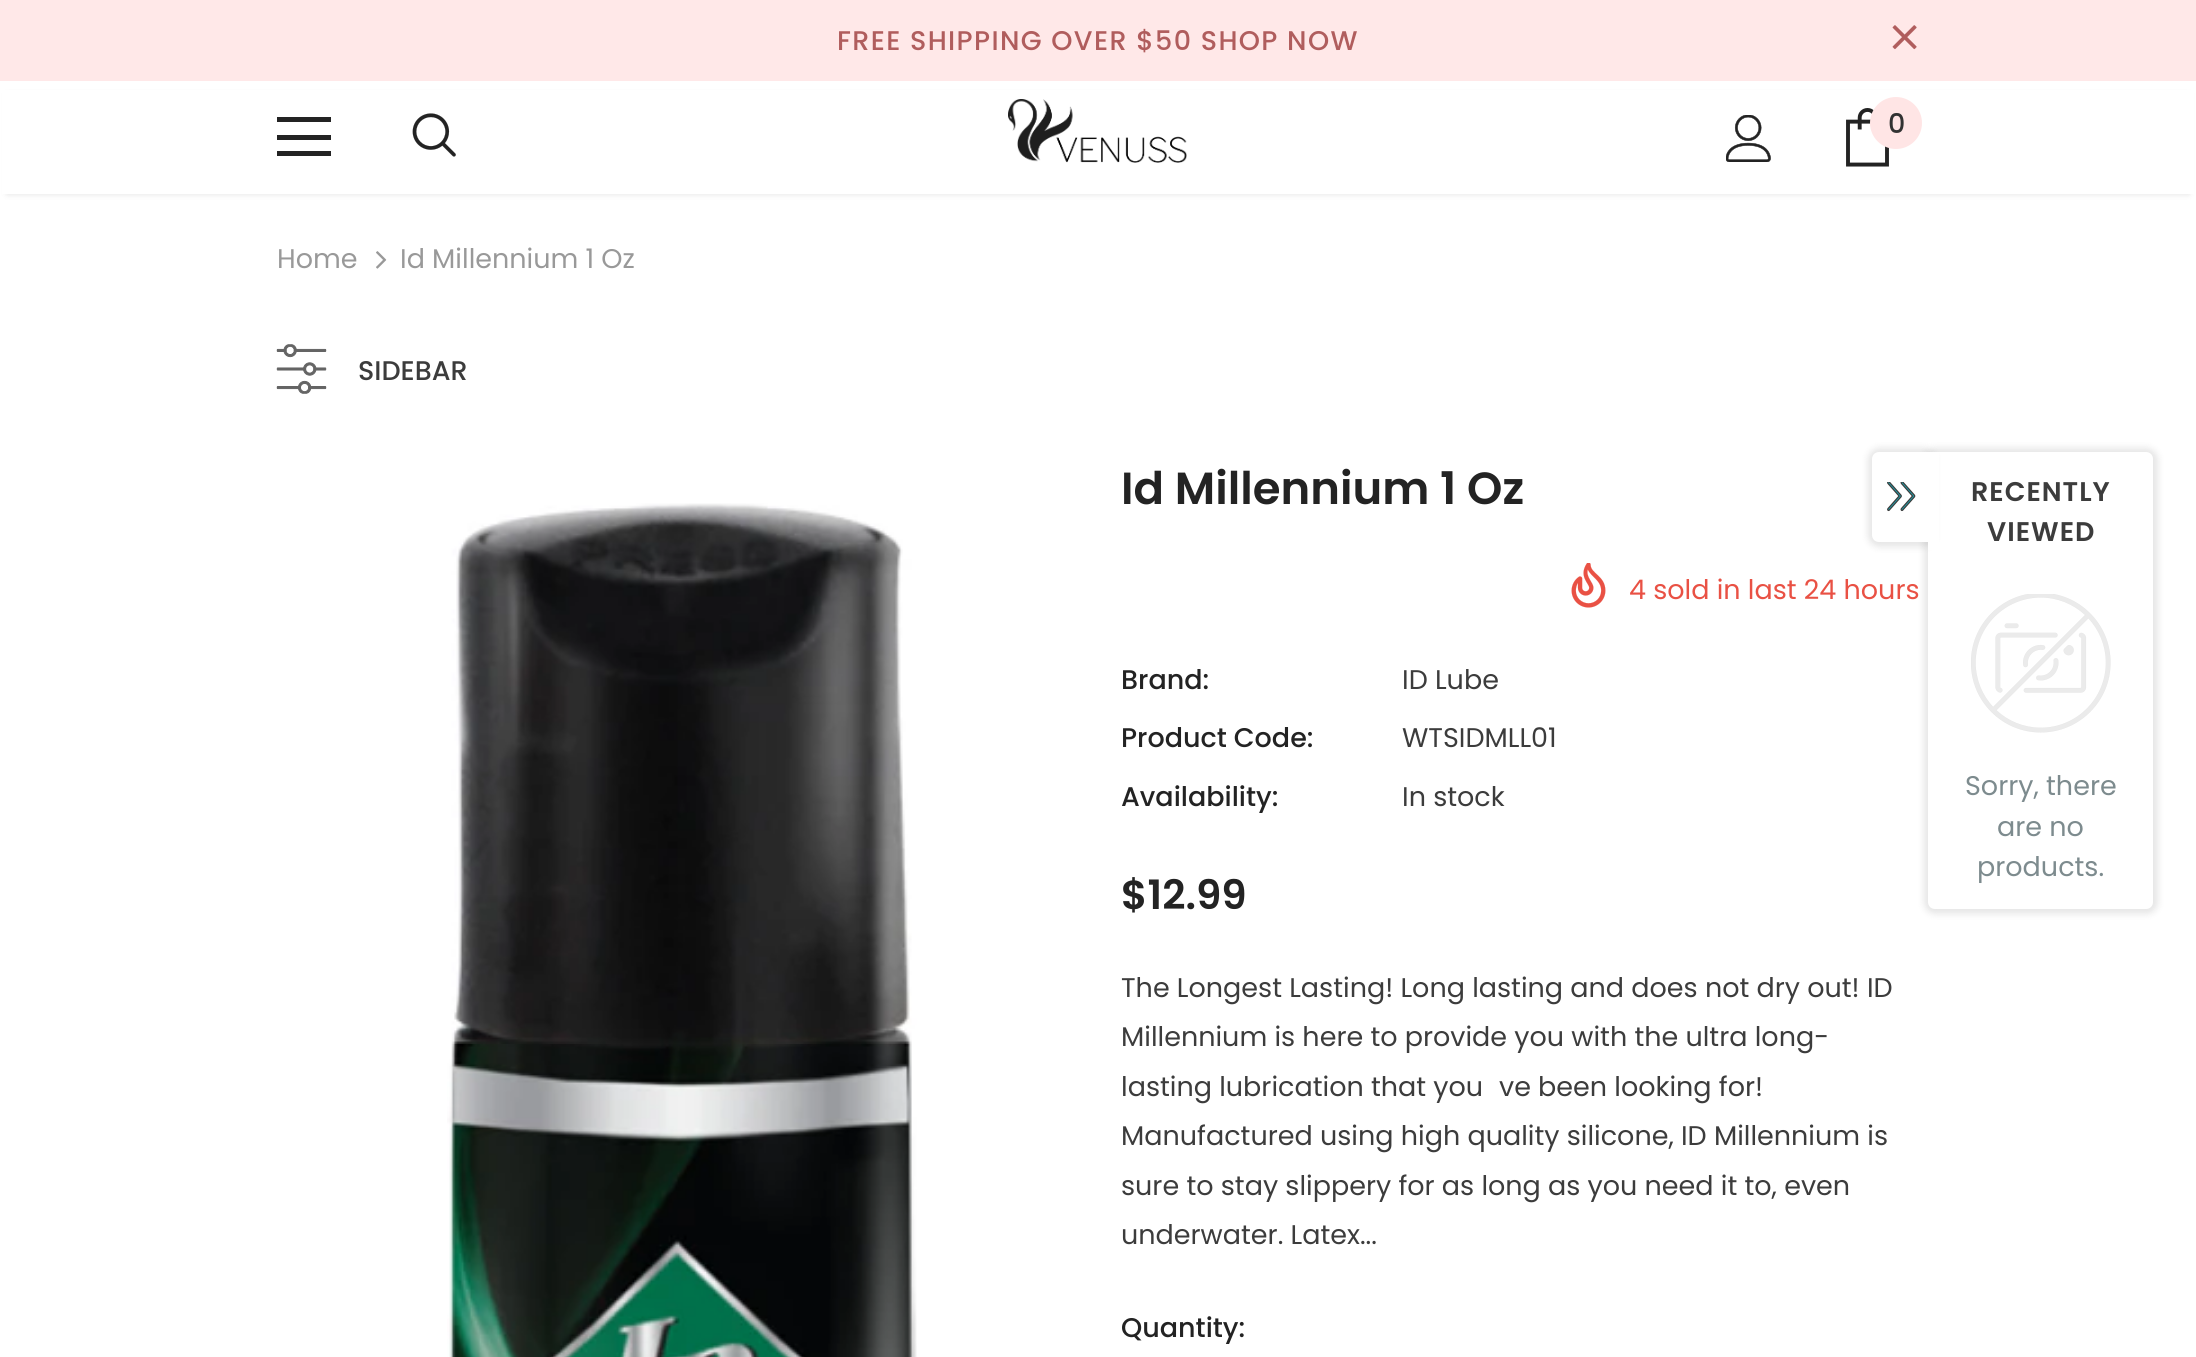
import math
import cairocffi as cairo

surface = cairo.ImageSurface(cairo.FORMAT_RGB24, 2196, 1357)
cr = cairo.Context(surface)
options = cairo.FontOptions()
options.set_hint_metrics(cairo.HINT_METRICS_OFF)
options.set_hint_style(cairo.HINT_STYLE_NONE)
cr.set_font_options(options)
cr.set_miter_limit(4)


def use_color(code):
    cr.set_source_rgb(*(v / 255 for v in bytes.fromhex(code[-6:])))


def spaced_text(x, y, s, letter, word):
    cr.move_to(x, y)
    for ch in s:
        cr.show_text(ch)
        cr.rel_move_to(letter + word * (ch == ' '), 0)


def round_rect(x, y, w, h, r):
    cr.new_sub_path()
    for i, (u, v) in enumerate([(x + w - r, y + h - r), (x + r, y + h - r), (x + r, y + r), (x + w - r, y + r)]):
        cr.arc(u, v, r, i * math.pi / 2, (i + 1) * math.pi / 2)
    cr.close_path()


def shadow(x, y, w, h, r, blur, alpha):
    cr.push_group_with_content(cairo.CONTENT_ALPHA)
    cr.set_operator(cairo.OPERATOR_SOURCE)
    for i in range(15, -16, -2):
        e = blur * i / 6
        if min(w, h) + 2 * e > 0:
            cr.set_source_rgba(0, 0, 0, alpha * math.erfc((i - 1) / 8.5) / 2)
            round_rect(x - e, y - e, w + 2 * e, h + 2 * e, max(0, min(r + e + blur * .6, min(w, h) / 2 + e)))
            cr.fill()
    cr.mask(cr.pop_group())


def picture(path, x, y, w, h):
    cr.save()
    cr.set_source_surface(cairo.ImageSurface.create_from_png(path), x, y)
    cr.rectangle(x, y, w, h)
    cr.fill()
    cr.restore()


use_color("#ffffff")
cr.paint()
use_color("#ffe8e8")
cr.rectangle(0, 0, 2196, 81)
cr.fill()
cr.select_font_face("Poppins Medium")
cr.set_font_size(27)
use_color("#b05d5d")
spaced_text(837, 50, "FREE SHIPPING OVER $50 SHOP NOW", 1.35, 0)
picture("img1.png", 1892, 25, 25, 25)
use_color("#000000")
shadow(7, 95, 2182, 99, 0, 3.5, 0.12)
use_color("#ffffff")
cr.rectangle(2, 90, 2192, 104)
cr.fill()
use_color("#232323")
cr.rectangle(277, 117, 54, 5)
cr.fill()
cr.rectangle(277, 135, 54, 5)
cr.fill()
cr.rectangle(277, 151, 54, 5)
cr.fill()
picture("img2.png", 412, 113, 44, 44)
picture("img3.png", 1008, 99, 179, 64)
picture("img4.png", 1726, 115, 45, 47)
picture("img5.png", 1846, 108, 43, 59)
use_color("#ffe5e5")
cr.arc(1896, 123, 26, 0, 2 * math.pi)
cr.fill()
use_color("#323232")
cr.move_to(1888, 133)
cr.show_text("0")
cr.select_font_face("Poppins")
use_color("#999999")
cr.move_to(277, 268)
cr.show_text("Home")
picture("img6.png", 376, 251, 11, 18)
cr.move_to(400, 268)
cr.show_text("Id Millennium 1 Oz")
picture("img7.png", 276, 344, 51, 50)
cr.select_font_face("Poppins Medium")
use_color("#3c3c3c")
cr.move_to(358, 380)
cr.show_text("SIDEBAR")
picture("img8.png", 447, 503, 470, 854)
cr.select_font_face("Poppins SemiBold")
cr.set_font_size(45)
use_color("#232323")
cr.move_to(1121, 504)
cr.show_text("Id Millennium 1 Oz")
picture("img9.png", 1571, 563, 35, 45)
cr.select_font_face("Poppins")
cr.set_font_size(27)
use_color("#e95144")
cr.move_to(1629, 599)
cr.show_text("4 sold in last 24 hours")
cr.select_font_face("Poppins Medium")
use_color("#232323")
cr.move_to(1121, 689)
cr.show_text("Brand:")
cr.select_font_face("Poppins")
use_color("#3c3c3c")
cr.move_to(1402, 689)
cr.show_text("ID Lube")
cr.select_font_face("Poppins Medium")
use_color("#232323")
cr.move_to(1121, 747)
cr.show_text("Product Code:")
cr.select_font_face("Poppins")
use_color("#3c3c3c")
cr.move_to(1402, 747)
cr.show_text("WTSIDMLL01")
cr.select_font_face("Poppins Medium")
use_color("#232323")
cr.move_to(1121, 806)
cr.show_text("Availability:")
cr.select_font_face("Poppins")
use_color("#3c3c3c")
cr.move_to(1402, 806)
cr.show_text("In stock")
cr.select_font_face("Poppins SemiBold")
cr.set_font_size(40.5)
use_color("#232323")
cr.move_to(1121, 909)
cr.show_text("$12.99")
cr.select_font_face("Poppins")
cr.set_font_size(27)
use_color("#3c3c3c")
cr.move_to(1121, 997)
cr.show_text("The Longest Lasting! Long lasting and does not dry out! ID")
cr.move_to(1121, 1046)
cr.show_text("Millennium is here to provide you with the ultra long-")
cr.move_to(1121, 1096)
cr.show_text("lasting lubrication that you")
cr.move_to(1499, 1096)
cr.show_text("ve been looking for!")
cr.move_to(1121, 1145)
cr.show_text("Manufactured using high quality silicone, ID Millennium is")
cr.move_to(1121, 1195)
cr.show_text("sure to stay slippery for as long as you need it to, even")
cr.move_to(1121, 1244)
cr.show_text("underwater. Latex...")
cr.select_font_face("Poppins Medium")
use_color("#232323")
cr.move_to(1121, 1337)
cr.show_text("Quantity:")
use_color("#000000")
shadow(1924, 448, 234, 466, 11, 3.5, 0.1)
use_color("#ffffff")
cr.new_path()
cr.move_to(1928, 452)
cr.line_to(2146, 452)
cr.curve_to(2150, 452, 2153, 455, 2153, 459)
cr.line_to(2153, 902)
cr.curve_to(2153, 906, 2150, 909, 2146, 909)
cr.line_to(1935, 909)
cr.curve_to(1931, 909, 1928, 906, 1928, 902)
cr.close_path()
cr.fill()
use_color("#000000")
shadow(1868, 448, 67, 99, 11, 3.5, 0.1)
use_color("#ffffff")
cr.new_path()
cr.move_to(1879, 452)
cr.line_to(1931, 452)
cr.line_to(1931, 542)
cr.line_to(1879, 542)
cr.curve_to(1875, 542, 1872, 539, 1872, 535)
cr.line_to(1872, 459)
cr.curve_to(1872, 455, 1875, 452, 1879, 452)
cr.close_path()
cr.fill()
picture("img10.png", 1887, 482, 29, 30)
cr.rectangle(1928, 452, 11, 98)
cr.fill()
cr.select_font_face("Poppins SemiBold")
use_color("#3c3c3c")
spaced_text(1971, 501, "RECENTLY", 1, 0)
spaced_text(1987, 541, "VIEWED", 1, 0)
picture("img11.png", 1971, 594, 140, 139)
cr.select_font_face("Poppins")
use_color("#7d8b8e")
cr.move_to(1965, 795)
cr.show_text("Sorry, there")
cr.move_to(1997, 836)
cr.show_text("are no")
cr.move_to(1977, 876)
cr.show_text("products.")
surface.write_to_png("result.png")
